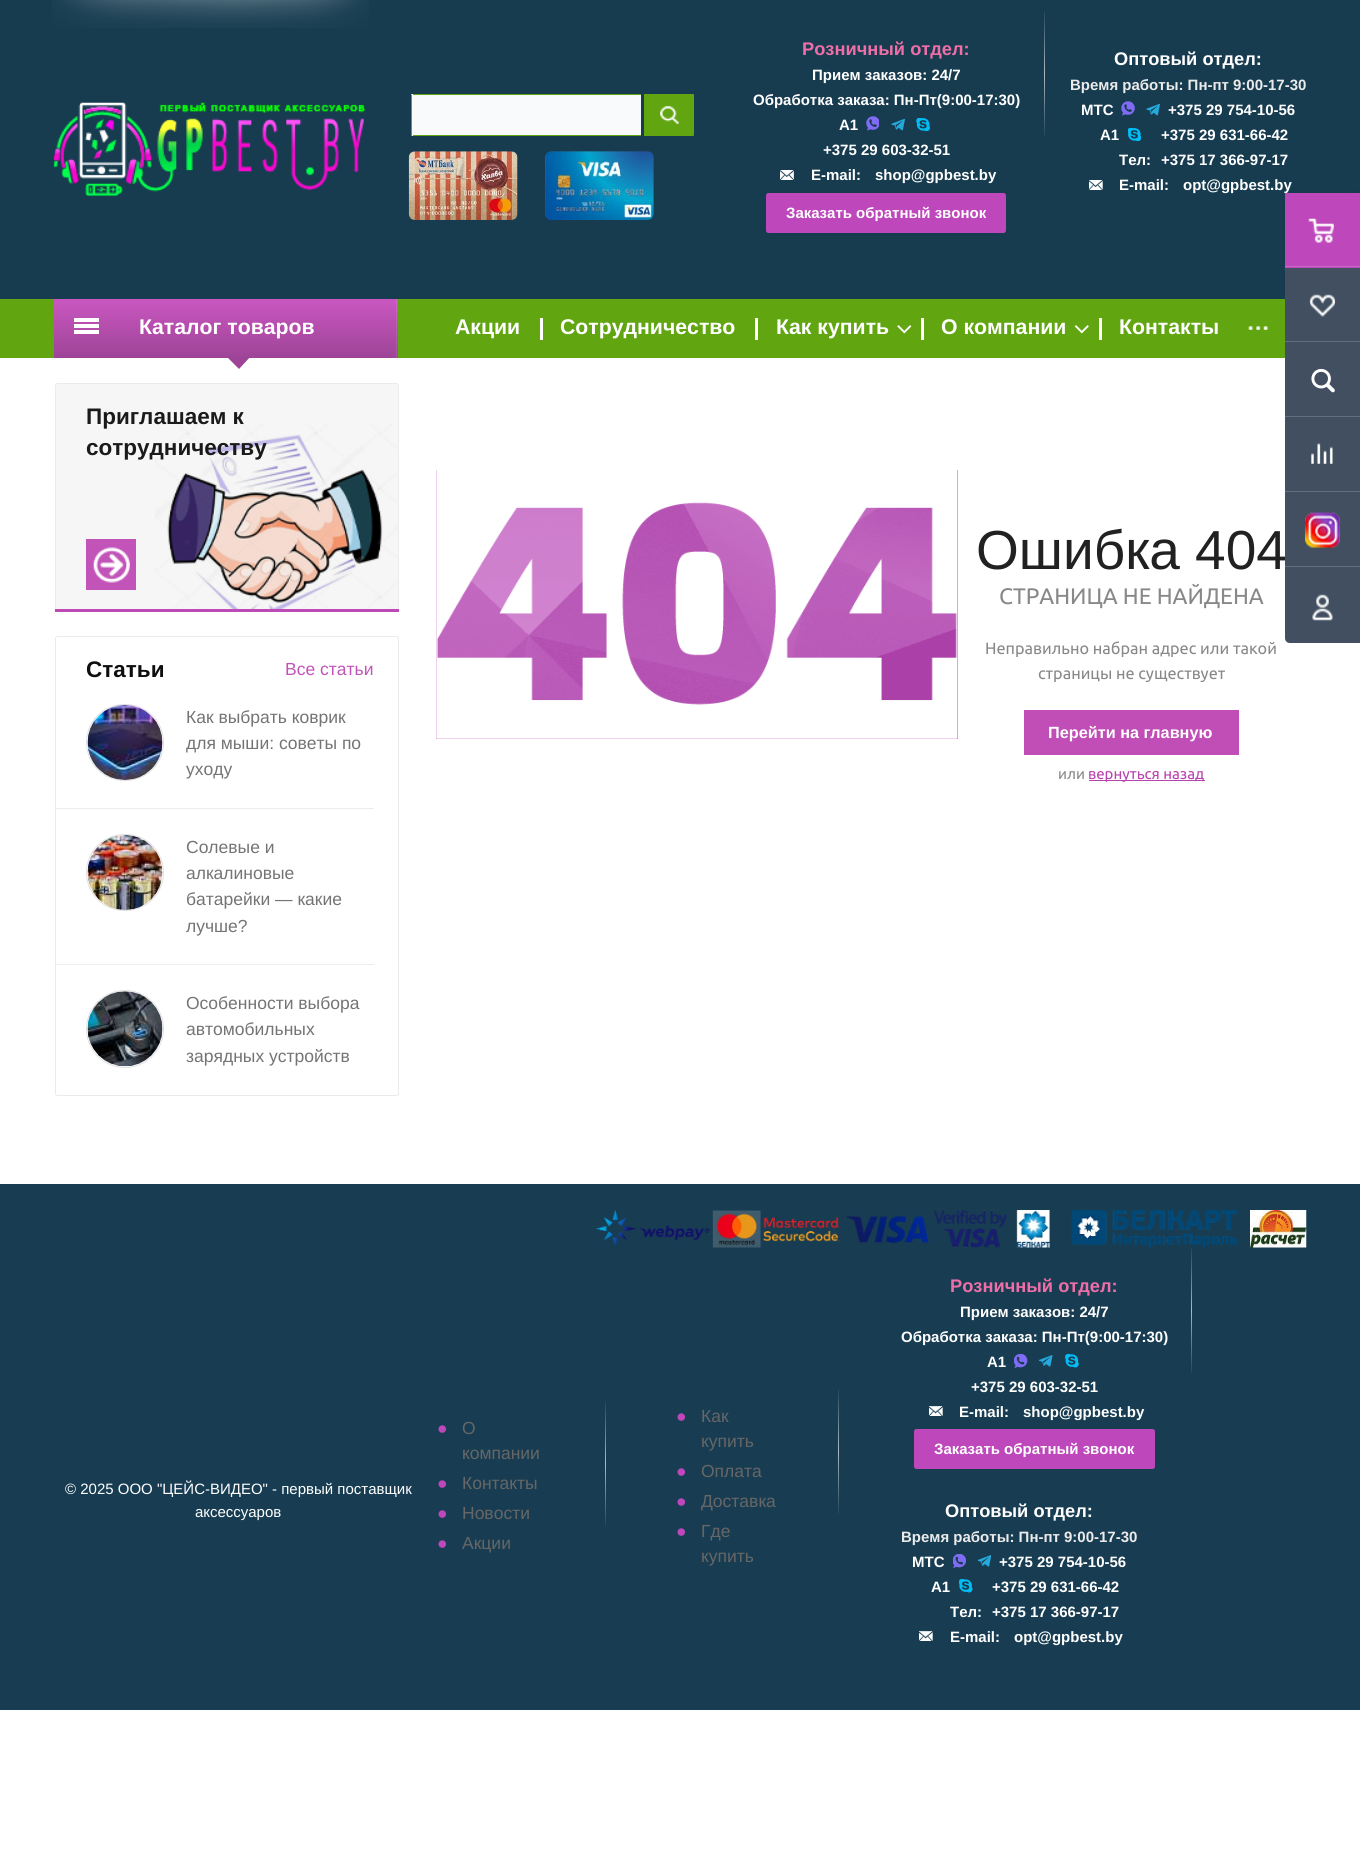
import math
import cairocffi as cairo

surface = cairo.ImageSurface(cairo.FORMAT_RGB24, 1360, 1859)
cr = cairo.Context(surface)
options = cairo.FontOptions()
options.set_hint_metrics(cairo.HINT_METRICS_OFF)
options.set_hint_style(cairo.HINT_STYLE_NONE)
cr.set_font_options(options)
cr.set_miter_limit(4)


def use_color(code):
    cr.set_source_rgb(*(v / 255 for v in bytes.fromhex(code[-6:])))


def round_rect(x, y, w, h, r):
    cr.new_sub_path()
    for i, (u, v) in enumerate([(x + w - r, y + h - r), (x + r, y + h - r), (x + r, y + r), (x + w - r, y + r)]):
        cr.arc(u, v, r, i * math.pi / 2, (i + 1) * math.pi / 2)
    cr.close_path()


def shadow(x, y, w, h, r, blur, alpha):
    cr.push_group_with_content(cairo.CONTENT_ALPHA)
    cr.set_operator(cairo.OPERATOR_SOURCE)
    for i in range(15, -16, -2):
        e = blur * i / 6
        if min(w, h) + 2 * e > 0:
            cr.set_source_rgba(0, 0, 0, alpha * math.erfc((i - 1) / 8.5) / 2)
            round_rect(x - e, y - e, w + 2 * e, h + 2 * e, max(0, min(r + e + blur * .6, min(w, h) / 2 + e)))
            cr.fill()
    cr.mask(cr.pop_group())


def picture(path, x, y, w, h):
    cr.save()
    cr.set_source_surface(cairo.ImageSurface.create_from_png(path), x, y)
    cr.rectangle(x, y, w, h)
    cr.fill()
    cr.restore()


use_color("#ffffff")
cr.paint()
use_color("#173c50")
cr.rectangle(0, 0, 1360, 299)
cr.fill()
picture("img1.png", 52, 0, 317, 28)
picture("img2.png", 53, 102, 313, 95)
use_color("#f8fafc")
cr.new_path()
cr.move_to(412, 94)
cr.line_to(641, 94)
cr.line_to(641, 136)
cr.line_to(412, 136)
cr.curve_to(411.5, 136, 411, 135.5, 411, 135)
cr.line_to(411, 95)
cr.curve_to(411, 94.5, 411.5, 94, 412, 94)
cr.close_path()
cr.fill()
use_color("#61a611")
cr.rectangle(413, 94, 228, 1)
cr.fill()
cr.rectangle(413, 135, 228, 1)
cr.fill()
cr.rectangle(411, 95, 1, 41)
cr.fill()
cr.new_path()
cr.move_to(644, 94)
cr.line_to(693, 94)
cr.curve_to(693.5, 94, 694, 94.5, 694, 95)
cr.line_to(694, 135)
cr.curve_to(694, 135.5, 693.5, 136, 693, 136)
cr.line_to(644, 136)
cr.close_path()
cr.fill()
picture("img3.png", 660, 106, 19, 18)
picture("img4.png", 408, 151, 110, 69)
picture("img5.png", 545, 151, 109, 69)
cr.select_font_face("Liberation Sans", cairo.FONT_SLANT_NORMAL, cairo.FONT_WEIGHT_BOLD)
cr.set_font_size(18.25)
use_color("#ef6ea8")
cr.move_to(802, 55)
cr.show_text("Розничный отдел:")
cr.set_font_size(15)
use_color("#ffffff")
cr.move_to(812, 80)
cr.show_text("Прием заказов: 24/7")
cr.move_to(753, 105)
cr.show_text("Обработка заказа: Пн-Пт(9:00-17:30)")
cr.move_to(839, 130)
cr.show_text("А1")
picture("img6.png", 866, 116, 13, 15)
picture("img7.png", 891, 118, 14, 13)
picture("img8.png", 916, 118, 14, 13)
cr.move_to(823, 155)
cr.show_text("+375 29 603-32-51")
picture("img9.png", 780, 170, 14, 10)
cr.move_to(811, 180)
cr.show_text("E-mail:")
cr.move_to(875, 180)
cr.show_text("shop@gpbest.by")
use_color("#bd47bb")
round_rect(766, 193, 240, 40, 2.5)
cr.fill()
use_color("#ffffff")
cr.move_to(786, 218)
cr.show_text("Заказать обратный звонок")
gradient = cairo.LinearGradient(1044, 11, 1044, 136)
gradient.add_color_stop_rgba(0, 0.137, 0.275, 0.349, 1)
gradient.add_color_stop_rgba(0.5, 0.678, 0.729, 0.757, 1)
gradient.add_color_stop_rgba(1, 0.137, 0.275, 0.349, 1)
cr.set_source(gradient)
cr.rectangle(1044, 11, 1, 125)
cr.fill()
cr.set_font_size(18.25)
use_color("#ffffff")
cr.move_to(1114, 65)
cr.show_text("Оптовый отдел:")
cr.set_font_size(15)
use_color("#ebebeb")
cr.move_to(1070, 90)
cr.show_text("Время работы: Пн-пт 9:00-17-30")
use_color("#ffffff")
cr.move_to(1081, 115)
cr.show_text("МТС")
picture("img10.png", 1121, 101, 14, 15)
picture("img7.png", 1146, 103, 14, 13)
cr.move_to(1168, 115)
cr.show_text("+375 29 754-10-56")
cr.move_to(1100, 140)
cr.show_text("А1")
picture("img11.png", 1128, 128, 13, 13)
cr.move_to(1161, 140)
cr.show_text("+375 29 631-66-42")
cr.move_to(1119, 165)
cr.show_text("Tел:")
cr.move_to(1161, 165)
cr.show_text("+375 17 366-97-17")
picture("img12.png", 1089, 180, 14, 10)
cr.move_to(1119, 190)
cr.show_text("E-mail:")
cr.move_to(1183, 190)
cr.show_text("opt@gpbest.by")
use_color("#2c2c2c")
shadow(1360, 200, 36, 364, 2.5, 11, 0.4)
cr.select_font_face("Liberation Sans")
cr.set_font_size(55)
use_color("#212121")
cr.move_to(976, 569)
cr.show_text("Ошибка 404")
use_color("#424f60")
cr.new_path()
cr.move_to(1290, 193)
cr.line_to(1360, 193)
cr.line_to(1360, 643)
cr.line_to(1290, 643)
cr.curve_to(1287, 643, 1285, 641, 1285, 638)
cr.line_to(1285, 198)
cr.curve_to(1285, 195, 1287, 193, 1290, 193)
cr.close_path()
cr.fill()
use_color("#bd47bb")
cr.rectangle(1285, 193, 75, 75)
cr.fill()
picture("img13.png", 1308, 218, 26, 25)
use_color("#c568c6")
cr.rectangle(1285, 266, 75, 1)
cr.fill()
picture("img14.png", 1309, 294, 26, 23)
use_color("#636f7d")
cr.rectangle(1285, 341, 75, 1)
cr.fill()
picture("img15.png", 1311, 368, 24, 25)
cr.rectangle(1285, 416, 75, 1)
cr.fill()
picture("img16.png", 1311, 443, 22, 21)
cr.rectangle(1285, 491, 75, 1)
cr.fill()
picture("img17.png", 1305, 511, 35, 37)
cr.rectangle(1285, 566, 75, 1)
cr.fill()
picture("img18.png", 1312, 594, 21, 27)
use_color("#61a611")
cr.rectangle(0, 299, 1285, 59)
cr.fill()
gradient = cairo.LinearGradient(226, 299, 226, 358)
gradient.add_color_stop_rgba(0, 0.792, 0.341, 0.757, 1)
gradient.add_color_stop_rgba(1, 0.62, 0.267, 0.592, 1)
cr.set_source(gradient)
cr.rectangle(54, 299, 344, 59)
cr.fill()
gradient = cairo.LinearGradient(226, 299, 226, 358)
gradient.add_color_stop_rgba(0, 0.812, 0.408, 0.78, 1)
gradient.add_color_stop_rgba(1, 0.659, 0.341, 0.631, 1)
cr.set_source(gradient)
cr.rectangle(396, 299, 1, 59)
cr.fill()
use_color("#ffffff")
cr.rectangle(74, 318, 25, 4)
cr.fill()
cr.rectangle(74, 324, 25, 4)
cr.fill()
cr.rectangle(74, 330, 25, 4)
cr.fill()
cr.select_font_face("Liberation Sans", cairo.FONT_SLANT_NORMAL, cairo.FONT_WEIGHT_BOLD)
cr.set_font_size(21.25)
cr.move_to(139, 334)
cr.show_text("Каталог товаров")
use_color("#9e4497")
cr.new_path()
cr.move_to(226, 356)
cr.line_to(251, 356)
cr.line_to(239, 369)
cr.close_path()
cr.fill()
use_color("#ffffff")
cr.move_to(455, 334)
cr.show_text("Акции")
cr.rectangle(540, 318, 3, 22)
cr.fill()
cr.move_to(560, 334)
cr.show_text("Сотрудничество")
cr.rectangle(755, 318, 3, 22)
cr.fill()
cr.move_to(776, 334)
cr.show_text("Как купить")
picture("img19.png", 897, 325, 15, 9)
cr.rectangle(921, 318, 3, 22)
cr.fill()
cr.move_to(941, 334)
cr.show_text("О компании")
picture("img20.png", 1074, 325, 15, 9)
cr.rectangle(1099, 318, 3, 22)
cr.fill()
cr.move_to(1119, 334)
cr.show_text("Контакты")
picture("img21.png", 1248, 326, 20, 4)
use_color("#f6f6f7")
cr.new_path()
cr.move_to(57.5, 383)
cr.line_to(396.5, 383)
cr.curve_to(398, 383, 399, 384, 399, 385.5)
cr.line_to(399, 611)
cr.line_to(55, 611)
cr.line_to(55, 385.5)
cr.curve_to(55, 384, 56, 383, 57.5, 383)
cr.close_path()
cr.fill()
picture("img22.png", 155, 424, 242, 185)
cr.new_path()
cr.move_to(57.5, 383.5)
cr.line_to(396.5, 383.5)
cr.curve_to(397.5, 383.5, 398.5, 384.5, 398.5, 385.5)
cr.line_to(398.5, 610.5)
cr.line_to(55.5, 610.5)
cr.line_to(55.5, 385.5)
cr.curve_to(55.5, 384.5, 56.5, 383.5, 57.5, 383.5)
cr.close_path()
use_color("#eaebec")
cr.set_line_width(1)
cr.stroke()
cr.set_font_size(22.5)
use_color("#1a1a1a")
cr.move_to(86, 424)
cr.show_text("Приглашаем к")
cr.move_to(86, 455)
cr.show_text("сотрудничеству")
use_color("#c254b9")
cr.rectangle(86, 539, 50, 51)
cr.fill()
picture("img23.png", 93, 547, 37, 36)
use_color("#be4ab5")
cr.rectangle(55, 609, 344, 3)
cr.fill()
round_rect(55.5, 636.5, 343, 459, 2)
use_color("#eaebec")
cr.stroke()
use_color("#0e0e0e")
cr.move_to(86, 677)
cr.show_text("Статьи")
cr.select_font_face("Liberation Sans")
cr.set_font_size(17.5)
use_color("#c254b9")
cr.move_to(285, 675)
cr.show_text("Все статьи")
use_color("#ebeef1")
cr.rectangle(56, 808, 318, 1)
cr.fill()
round_rect(86.5, 704.5, 77, 76, 38)
use_color("#e1e1e1")
cr.stroke()
picture("img24.png", 87, 705, 76, 75)
use_color("#747474")
cr.move_to(186, 723)
cr.show_text("Как выбрать коврик")
cr.move_to(186, 749)
cr.show_text("для мыши: советы по")
cr.move_to(186, 775)
cr.show_text("уходу")
use_color("#ebeef1")
cr.rectangle(56, 964, 318, 1)
cr.fill()
round_rect(86.5, 834.5, 77, 76, 38)
use_color("#e1e1e1")
cr.stroke()
picture("img25.png", 87, 835, 76, 75)
use_color("#747474")
cr.move_to(186, 853)
cr.show_text("Солевые и")
cr.move_to(186, 879)
cr.show_text("алкалиновые")
cr.move_to(186, 905)
cr.show_text("батарейки — какие")
cr.move_to(186, 932)
cr.show_text("лучше?")
cr.new_path()
cr.arc(125, 1029, 38.5, 0, 2 * math.pi)
use_color("#e1e1e1")
cr.stroke()
picture("img26.png", 87, 991, 76, 76)
use_color("#747474")
cr.move_to(186, 1009)
cr.show_text("Особенности выбора")
cr.move_to(186, 1035)
cr.show_text("автомобильных")
cr.move_to(186, 1062)
cr.show_text("зарядных устройств")
use_color("#bd47bb")
cr.rectangle(436, 470, 522, 269)
cr.fill()
picture("img27.png", 436, 470, 522, 269)
cr.select_font_face("Ubuntu")
cr.set_font_size(22.5)
use_color("#888888")
cr.move_to(999, 604)
cr.show_text("СТРАНИЦА НЕ НАЙДЕНА")
cr.set_font_size(16.25)
cr.move_to(985, 654)
cr.show_text("Неправильно набран адрес или такой")
cr.move_to(1038, 679)
cr.show_text("страницы не существует")
use_color("#c04eb6")
cr.rectangle(1024, 710, 215, 45)
cr.fill()
cr.select_font_face("Liberation Sans", cairo.FONT_SLANT_NORMAL, cairo.FONT_WEIGHT_BOLD)
use_color("#ffffff")
cr.move_to(1048, 738)
cr.show_text("Перейти на главную")
cr.select_font_face("Ubuntu")
cr.set_font_size(15)
use_color("#888888")
cr.move_to(1058, 779)
cr.show_text("или")
use_color("#b842ae")
cr.rectangle(1089, 780, 116, 1)
cr.fill()
cr.move_to(1088, 779)
cr.show_text("вернуться назад")
use_color("#183d52")
cr.rectangle(0, 1184, 1360, 526)
cr.fill()
picture("img28.png", 596, 1210, 459, 38)
picture("img29.png", 1071, 1210, 167, 38)
picture("img30.png", 1250, 1210, 57, 38)
cr.select_font_face("Liberation Sans")
use_color("#ffffff")
cr.move_to(65, 1494)
cr.show_text("© 2025 ООО \"ЦЕЙС-ВИДЕО\" - первый поставщик")
cr.move_to(195, 1517)
cr.show_text("аксессуаров")
cr.set_font_size(17.5)
use_color("#bd47bb")
cr.move_to(437, 1434)
cr.show_text("●")
use_color("#666666")
cr.move_to(462, 1434)
cr.show_text("О")
cr.move_to(462, 1459)
cr.show_text("компании")
use_color("#bd47bb")
cr.move_to(437, 1489)
cr.show_text("●")
use_color("#666666")
cr.move_to(462, 1489)
cr.show_text("Контакты")
use_color("#bd47bb")
cr.move_to(437, 1519)
cr.show_text("●")
use_color("#666666")
cr.move_to(462, 1519)
cr.show_text("Новости")
use_color("#bd47bb")
cr.move_to(437, 1549)
cr.show_text("●")
use_color("#666666")
cr.move_to(462, 1549)
cr.show_text("Акции")
gradient = cairo.LinearGradient(606, 1401, 606, 1526)
gradient.add_color_stop_rgba(0, 0.137, 0.275, 0.349, 1)
gradient.add_color_stop_rgba(0.5, 0.678, 0.729, 0.757, 1)
gradient.add_color_stop_rgba(1, 0.137, 0.275, 0.349, 1)
cr.set_source(gradient)
cr.rectangle(605, 1401, 1, 125)
cr.fill()
use_color("#bd47bb")
cr.move_to(676, 1422)
cr.show_text("●")
use_color("#666666")
cr.move_to(701, 1422)
cr.show_text("Как")
cr.move_to(701, 1447)
cr.show_text("купить")
use_color("#bd47bb")
cr.move_to(676, 1477)
cr.show_text("●")
use_color("#666666")
cr.move_to(701, 1477)
cr.show_text("Оплата")
use_color("#bd47bb")
cr.move_to(676, 1507)
cr.show_text("●")
use_color("#666666")
cr.move_to(701, 1507)
cr.show_text("Доставка")
use_color("#bd47bb")
cr.move_to(676, 1537)
cr.show_text("●")
use_color("#666666")
cr.move_to(701, 1537)
cr.show_text("Где")
cr.move_to(701, 1562)
cr.show_text("купить")
gradient = cairo.LinearGradient(838, 1389, 838, 1514)
gradient.add_color_stop_rgba(0, 0.137, 0.275, 0.349, 1)
gradient.add_color_stop_rgba(0.5, 0.678, 0.729, 0.757, 1)
gradient.add_color_stop_rgba(1, 0.137, 0.275, 0.349, 1)
cr.set_source(gradient)
cr.rectangle(838, 1389, 1, 125)
cr.fill()
cr.select_font_face("Liberation Sans", cairo.FONT_SLANT_NORMAL, cairo.FONT_WEIGHT_BOLD)
cr.set_font_size(18.25)
use_color("#ef6ea8")
cr.move_to(950, 1292)
cr.show_text("Розничный отдел:")
cr.set_font_size(15)
use_color("#ffffff")
cr.move_to(960, 1317)
cr.show_text("Прием заказов: 24/7")
cr.move_to(901, 1342)
cr.show_text("Обработка заказа: Пн-Пт(9:00-17:30)")
cr.move_to(987, 1367)
cr.show_text("А1")
picture("img31.png", 1014, 1354, 14, 14)
picture("img32.png", 1039, 1355, 14, 12)
picture("img33.png", 1065, 1354, 14, 14)
cr.move_to(971, 1392)
cr.show_text("+375 29 603-32-51")
picture("img34.png", 929, 1406, 14, 10)
cr.move_to(959, 1417)
cr.show_text("E-mail:")
cr.move_to(1023, 1417)
cr.show_text("shop@gpbest.by")
use_color("#bd47bb")
round_rect(914, 1429, 241, 40, 2.5)
cr.fill()
use_color("#ffffff")
cr.move_to(934, 1454)
cr.show_text("Заказать обратный звонок")
gradient = cairo.LinearGradient(1192, 1248, 1192, 1373)
gradient.add_color_stop_rgba(0, 0.137, 0.275, 0.349, 1)
gradient.add_color_stop_rgba(0.5, 0.678, 0.729, 0.757, 1)
gradient.add_color_stop_rgba(1, 0.137, 0.275, 0.349, 1)
cr.set_source(gradient)
cr.rectangle(1191, 1248, 1, 125)
cr.fill()
cr.set_font_size(18.25)
use_color("#ffffff")
cr.move_to(945, 1517)
cr.show_text("Оптовый отдел:")
cr.set_font_size(15)
use_color("#ebebeb")
cr.move_to(901, 1542)
cr.show_text("Время работы: Пн-пт 9:00-17-30")
use_color("#ffffff")
cr.move_to(912, 1567)
cr.show_text("МТС")
picture("img35.png", 953, 1554, 13, 14)
picture("img36.png", 978, 1555, 13, 12)
cr.move_to(999, 1567)
cr.show_text("+375 29 754-10-56")
cr.move_to(931, 1592)
cr.show_text("А1")
picture("img37.png", 959, 1579, 14, 14)
cr.move_to(992, 1592)
cr.show_text("+375 29 631-66-42")
cr.move_to(950, 1617)
cr.show_text("Tел:")
cr.move_to(992, 1617)
cr.show_text("+375 17 366-97-17")
picture("img34.png", 919, 1631, 14, 10)
cr.move_to(950, 1642)
cr.show_text("E-mail:")
cr.move_to(1014, 1642)
cr.show_text("opt@gpbest.by")
surface.write_to_png("result.png")
